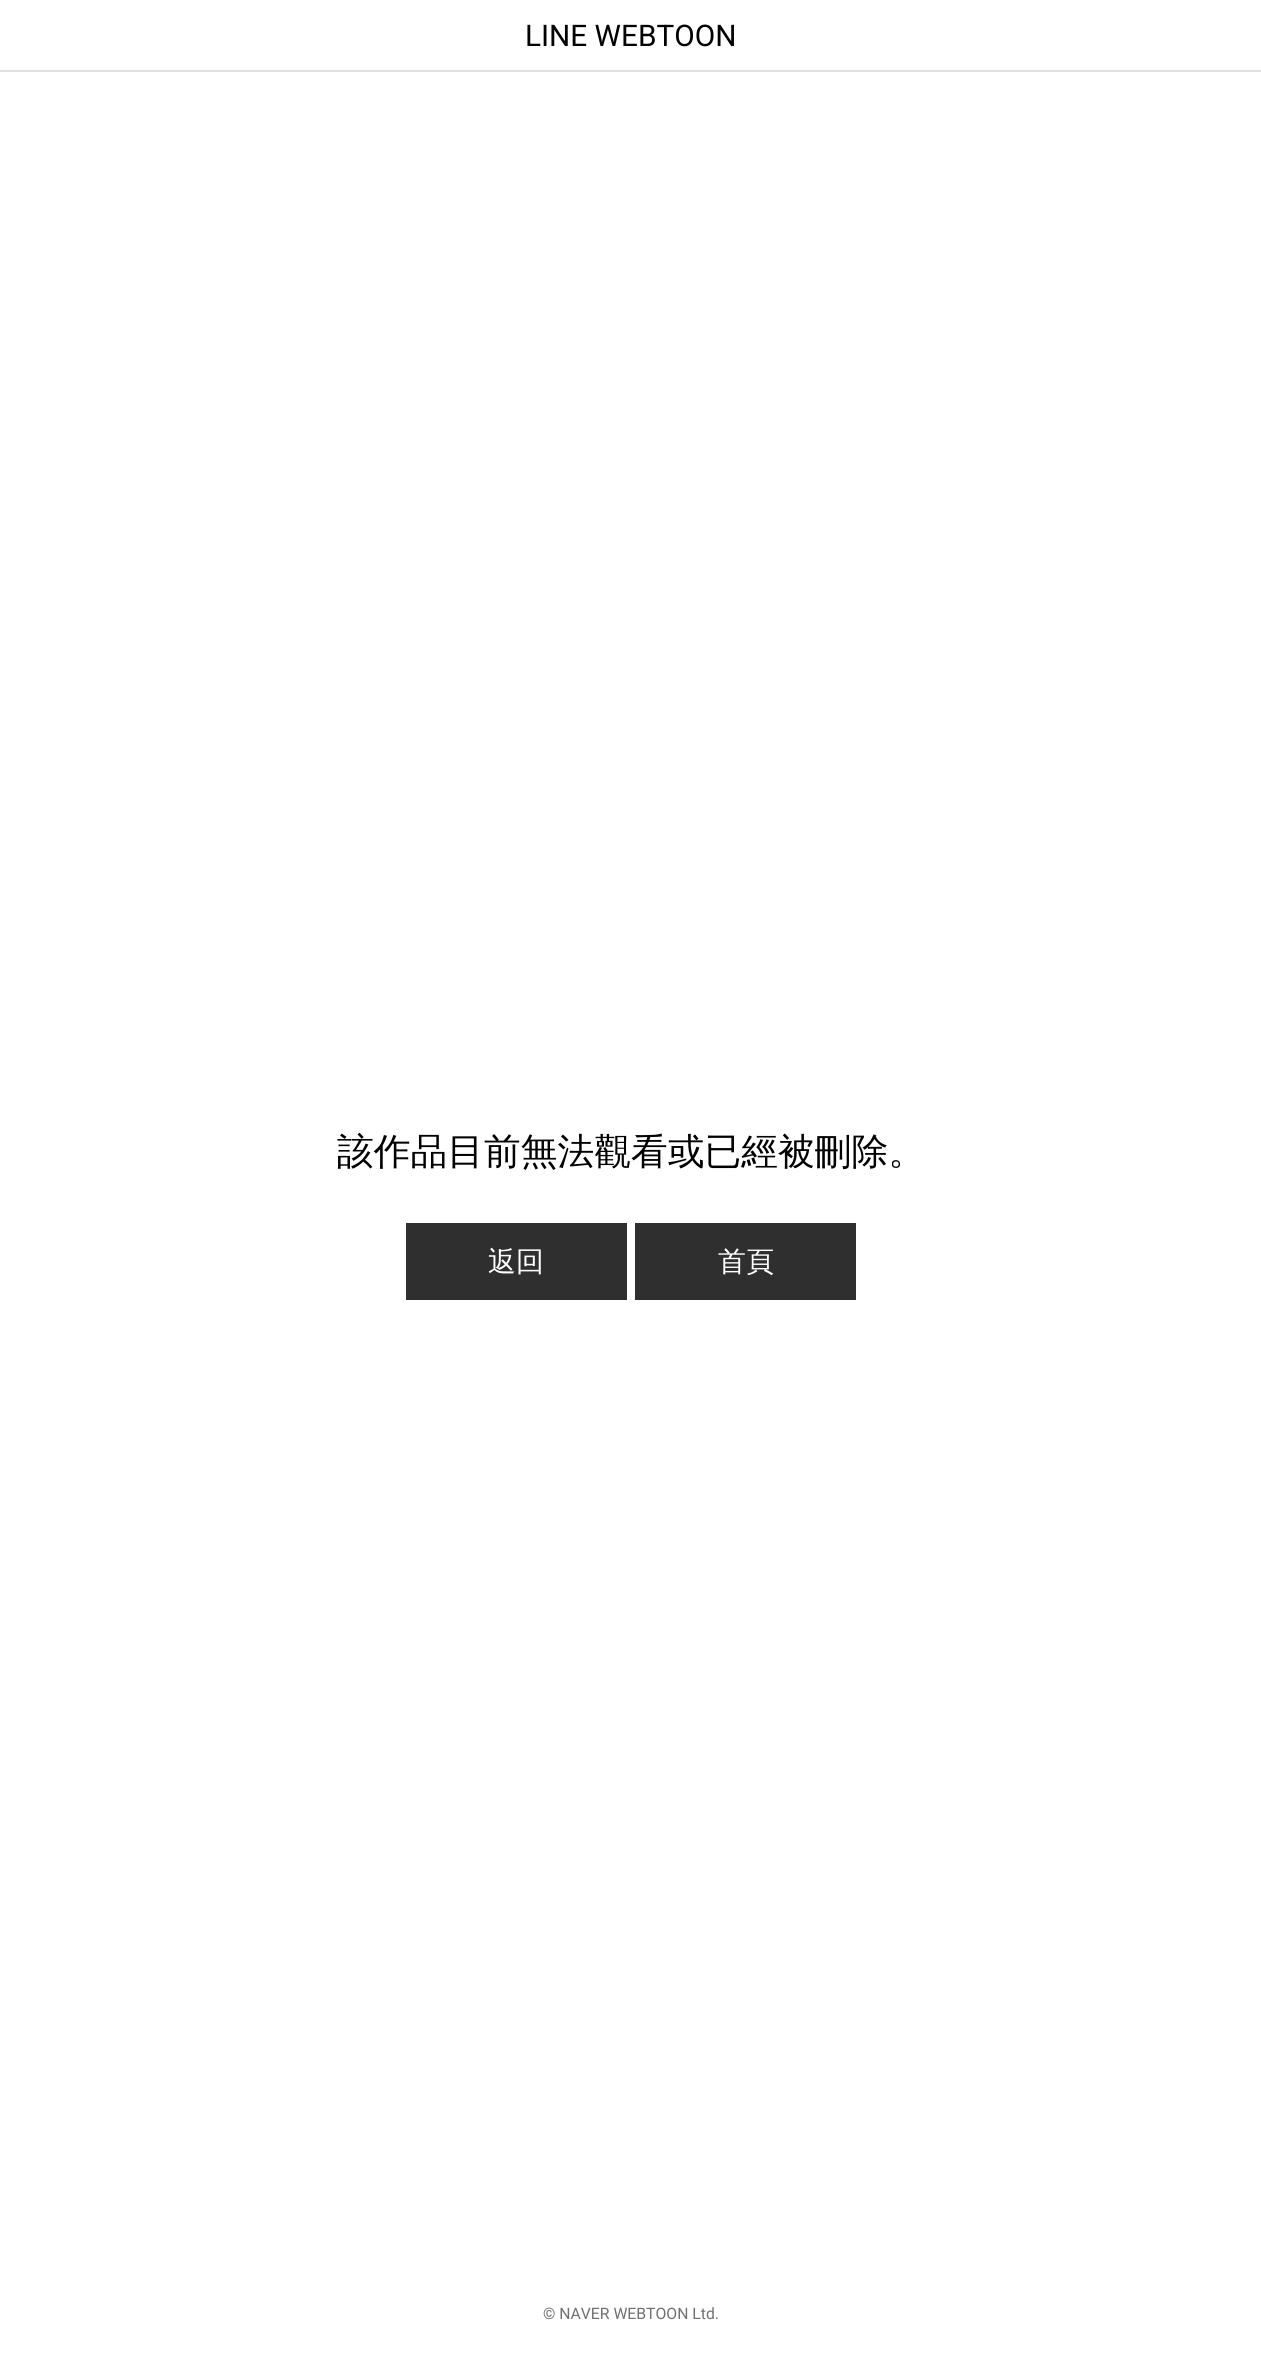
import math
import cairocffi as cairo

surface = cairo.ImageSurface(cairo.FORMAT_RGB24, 1261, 2376)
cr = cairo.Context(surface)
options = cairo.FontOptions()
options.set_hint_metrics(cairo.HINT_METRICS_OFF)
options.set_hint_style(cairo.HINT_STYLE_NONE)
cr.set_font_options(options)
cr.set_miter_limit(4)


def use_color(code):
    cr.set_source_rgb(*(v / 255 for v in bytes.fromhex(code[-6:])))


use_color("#ffffff")
cr.paint()
use_color("#e0e0e0")
cr.rectangle(0, 70, 1261, 2)
cr.fill()
cr.select_font_face("Roboto")
cr.set_font_size(29.75)
use_color("#000000")
cr.move_to(525, 46)
cr.show_text("LINE WEBTOON")
cr.select_font_face("WenQuanYi Zen Hei Medium")
cr.set_font_size(36.75)
cr.move_to(337, 1164)
cr.show_text("該作品目前無法觀看或已經被刪除。")
use_color("#2f2f2f")
cr.rectangle(406, 1223, 221, 77)
cr.fill()
cr.set_font_size(28)
use_color("#ffffff")
cr.move_to(488, 1271)
cr.show_text("返回")
use_color("#2f2f2f")
cr.rectangle(635, 1223, 221, 77)
cr.fill()
use_color("#ffffff")
cr.move_to(718, 1271)
cr.show_text("首頁")
cr.select_font_face("Roboto")
cr.set_font_size(15.75)
use_color("#707070")
cr.move_to(543, 2319)
cr.show_text("© NAVER WEBTOON Ltd.")
surface.write_to_png("result.png")
